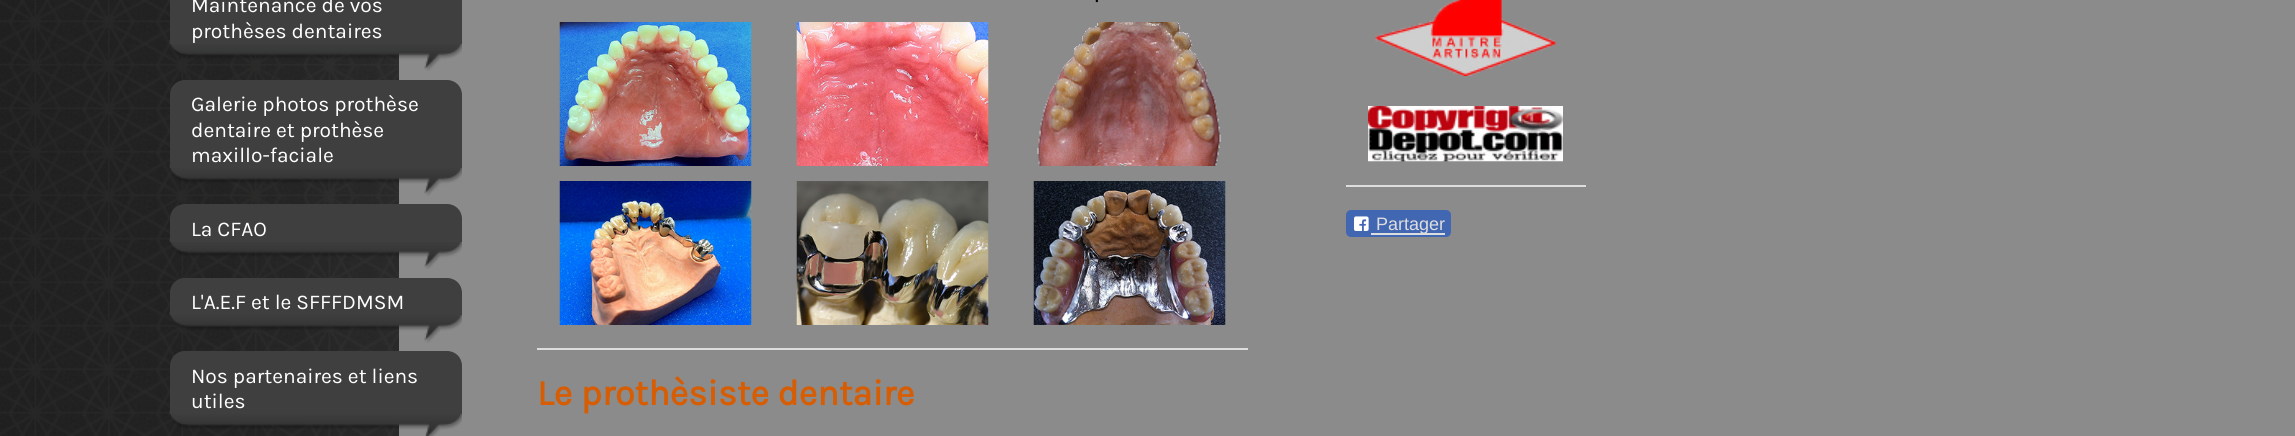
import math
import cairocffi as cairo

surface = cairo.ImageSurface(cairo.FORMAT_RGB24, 2295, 436)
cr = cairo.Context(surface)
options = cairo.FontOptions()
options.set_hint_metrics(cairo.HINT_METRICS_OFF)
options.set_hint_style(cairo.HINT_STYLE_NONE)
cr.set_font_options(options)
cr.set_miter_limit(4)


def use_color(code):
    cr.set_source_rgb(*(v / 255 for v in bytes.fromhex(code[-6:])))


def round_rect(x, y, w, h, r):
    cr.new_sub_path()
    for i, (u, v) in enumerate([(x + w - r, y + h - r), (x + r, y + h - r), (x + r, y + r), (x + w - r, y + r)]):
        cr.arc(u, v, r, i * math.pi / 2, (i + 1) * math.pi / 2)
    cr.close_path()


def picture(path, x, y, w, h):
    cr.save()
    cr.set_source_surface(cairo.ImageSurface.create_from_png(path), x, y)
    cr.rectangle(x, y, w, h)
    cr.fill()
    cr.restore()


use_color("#8b8b8b")
cr.paint()
picture("img1.png", 0, 0, 399, 436)
picture("img2.png", 169, 40, 293, 31)
use_color("#3f3f3f")
cr.rectangle(170, 0, 292, 44)
cr.fill()
cr.select_font_face("Karla")
cr.set_font_size(21)
use_color("#ffffff")
cr.move_to(191, 12)
cr.show_text("Maintenance de vos")
cr.move_to(191, 38)
cr.show_text("prothèses dentaires")
picture("img3.png", 169, 164, 293, 32)
use_color("#3f3f3f")
cr.new_path()
cr.move_to(185, 80)
cr.line_to(447, 80)
cr.curve_to(455.5, 80, 462, 86.5, 462, 95)
cr.line_to(462, 168)
cr.line_to(170, 168)
cr.line_to(170, 95)
cr.curve_to(170, 86.5, 176.5, 80, 185, 80)
cr.close_path()
cr.fill()
use_color("#ffffff")
cr.move_to(191, 111)
cr.show_text("Galerie photos prothèse")
cr.move_to(191, 137)
cr.show_text("dentaire et prothèse")
cr.move_to(191, 162)
cr.show_text("maxillo-faciale")
picture("img4.png", 169, 238, 293, 31)
use_color("#3f3f3f")
cr.new_path()
cr.move_to(185, 204)
cr.line_to(447, 204)
cr.curve_to(455.5, 204, 462, 210.5, 462, 219)
cr.line_to(462, 242)
cr.line_to(170, 242)
cr.line_to(170, 219)
cr.curve_to(170, 210.5, 176.5, 204, 185, 204)
cr.close_path()
cr.fill()
use_color("#ffffff")
cr.move_to(191, 236)
cr.show_text("La CFAO")
picture("img5.png", 169, 311, 293, 32)
use_color("#3f3f3f")
cr.new_path()
cr.move_to(185, 278)
cr.line_to(447, 278)
cr.curve_to(455.5, 278, 462, 284.5, 462, 293)
cr.line_to(462, 315)
cr.line_to(170, 315)
cr.line_to(170, 293)
cr.curve_to(170, 284.5, 176.5, 278, 185, 278)
cr.close_path()
cr.fill()
use_color("#ffffff")
cr.move_to(191, 309)
cr.show_text("L'A.E.F et le SFFFDMSM")
picture("img6.png", 169, 410, 293, 26)
use_color("#3f3f3f")
cr.new_path()
cr.move_to(185, 351)
cr.line_to(447, 351)
cr.curve_to(455.5, 351, 462, 357.5, 462, 366)
cr.line_to(462, 414)
cr.line_to(170, 414)
cr.line_to(170, 366)
cr.curve_to(170, 357.5, 176.5, 351, 185, 351)
cr.close_path()
cr.fill()
use_color("#ffffff")
cr.move_to(191, 383)
cr.show_text("Nos partenaires et liens")
cr.move_to(191, 408)
cr.show_text("utiles")
use_color("#000000")
cr.move_to(1095, 2)
cr.show_text(".")
picture("img7.png", 559, 22, 193, 144)
picture("img8.png", 796, 22, 193, 144)
picture("img9.png", 1037, 22, 184, 144)
picture("img10.png", 559, 181, 193, 144)
picture("img11.png", 796, 181, 193, 144)
picture("img12.png", 1033, 181, 193, 144)
use_color("#dddddd")
cr.rectangle(537, 348, 711, 2)
cr.fill()
cr.select_font_face("Karla", cairo.FONT_SLANT_NORMAL, cairo.FONT_WEIGHT_BOLD)
cr.set_font_size(36)
use_color("#d65d04")
cr.move_to(537, 405)
cr.show_text("Le prothèsiste dentaire")
picture("img13.png", 1375, 0, 181, 76)
picture("img14.png", 1368, 106, 195, 56)
use_color("#dddddd")
cr.rectangle(1346, 185, 240, 2)
cr.fill()
use_color("#4267b2")
round_rect(1346, 210, 105, 27, 5)
cr.fill()
picture("img15.png", 1354, 216, 15, 15)
use_color("#dddddd")
cr.rectangle(1371, 233, 74, 2)
cr.fill()
cr.select_font_face("Liberation Sans")
cr.set_font_size(18)
cr.move_to(1376, 230)
cr.show_text("Partager")
surface.write_to_png("result.png")
